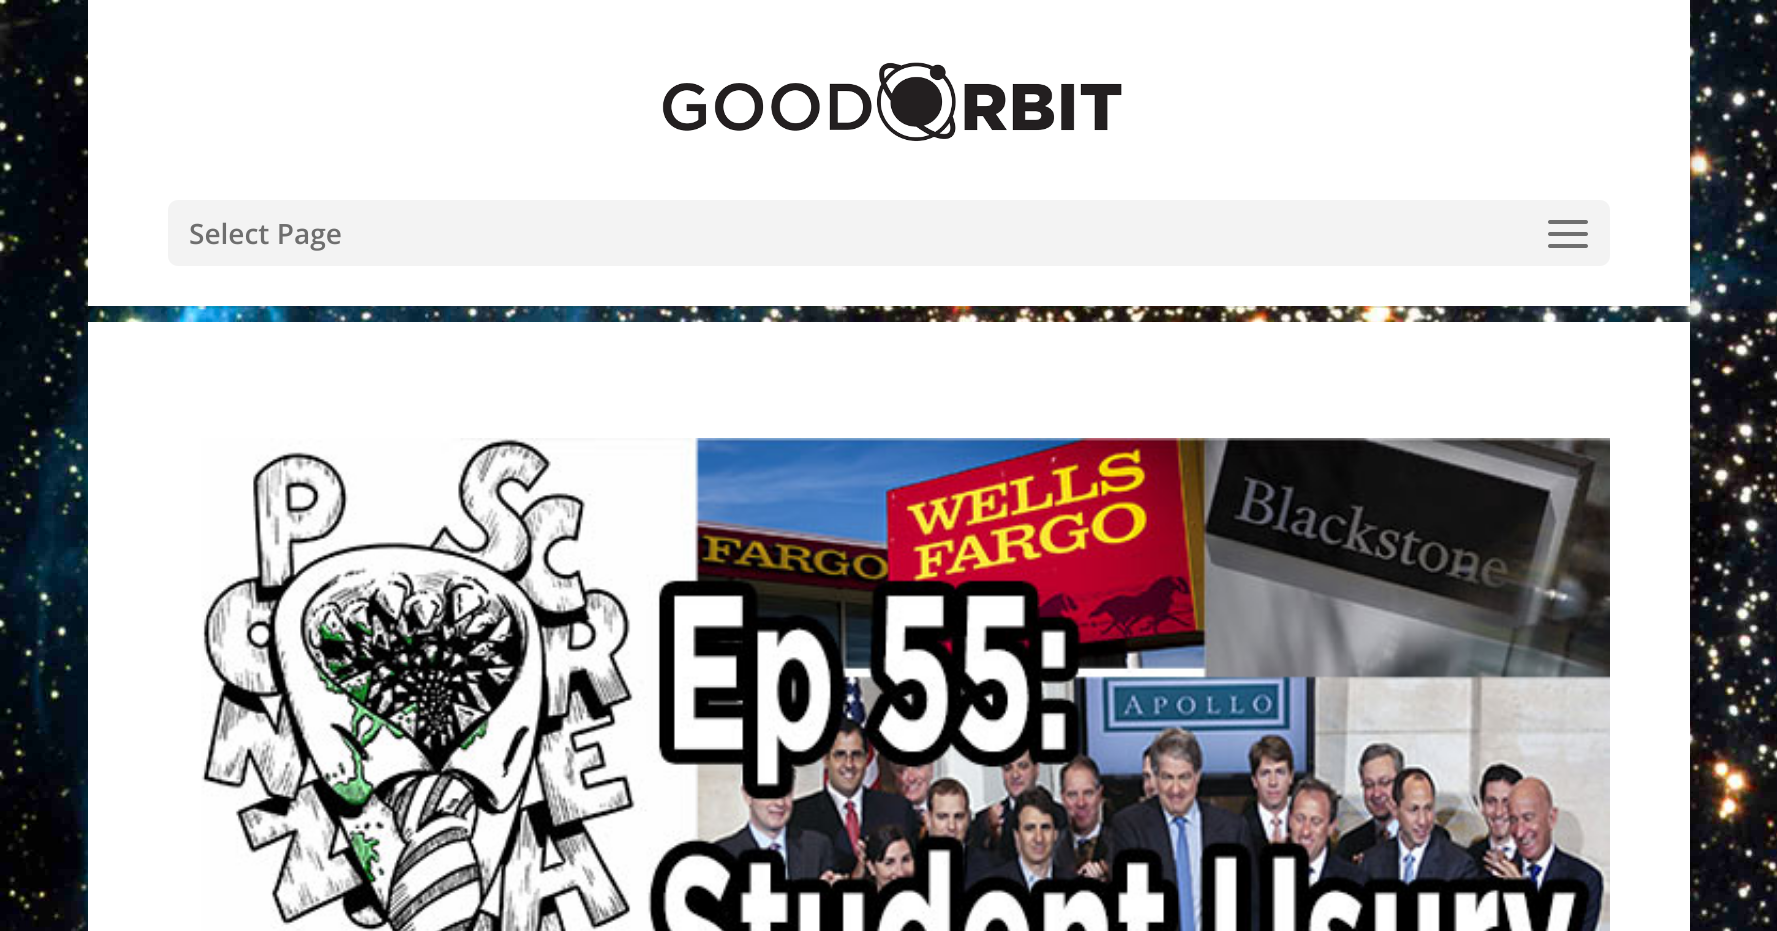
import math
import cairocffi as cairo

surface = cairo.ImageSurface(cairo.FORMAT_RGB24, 1777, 931)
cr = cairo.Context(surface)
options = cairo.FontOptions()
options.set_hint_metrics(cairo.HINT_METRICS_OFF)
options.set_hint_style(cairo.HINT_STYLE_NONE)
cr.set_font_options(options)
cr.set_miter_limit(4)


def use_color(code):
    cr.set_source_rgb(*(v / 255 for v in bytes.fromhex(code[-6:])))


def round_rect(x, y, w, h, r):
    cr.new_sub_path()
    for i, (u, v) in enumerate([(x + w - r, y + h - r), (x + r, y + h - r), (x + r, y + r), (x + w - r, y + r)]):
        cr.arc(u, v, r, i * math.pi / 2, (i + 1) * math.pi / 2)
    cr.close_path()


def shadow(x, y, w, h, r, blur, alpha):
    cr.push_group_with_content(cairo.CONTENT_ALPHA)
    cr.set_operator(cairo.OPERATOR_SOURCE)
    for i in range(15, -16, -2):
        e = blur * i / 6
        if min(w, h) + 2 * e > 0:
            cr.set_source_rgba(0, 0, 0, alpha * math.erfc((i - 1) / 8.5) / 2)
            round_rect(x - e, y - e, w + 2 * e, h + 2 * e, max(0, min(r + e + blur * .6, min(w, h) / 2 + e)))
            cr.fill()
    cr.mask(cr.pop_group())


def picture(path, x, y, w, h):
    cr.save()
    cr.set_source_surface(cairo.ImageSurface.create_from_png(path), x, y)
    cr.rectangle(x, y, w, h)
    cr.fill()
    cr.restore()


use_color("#ffffff")
cr.paint()
picture("img1.png", 0, 0, 1777, 931)
cr.save()
cr.set_fill_rule(cairo.FILL_RULE_EVEN_ODD)
cr.new_path()
cr.move_to(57, 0)
cr.line_to(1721, 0)
cr.line_to(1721, 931)
cr.line_to(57, 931)
cr.close_path()
cr.move_to(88, -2)
cr.line_to(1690, -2)
cr.line_to(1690, 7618)
cr.line_to(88, 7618)
cr.close_path()
cr.clip()
use_color("#000000")
shadow(88, -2, 1602, 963, 0, 10, 0.2)
cr.restore()
cr.set_source_rgba(0, 0, 0, 0.1)
cr.rectangle(88, 306, 1602, 2)
cr.fill()
use_color("#ffffff")
cr.rectangle(88, 0, 1602, 306)
cr.fill()
picture("img2.png", 662, 62, 460, 80)
use_color("#f3f3f3")
round_rect(168, 200, 1442, 66, 10)
cr.fill()
cr.select_font_face("Open Sans SemiBold")
cr.set_font_size(28)
use_color("#6e6e6e")
cr.move_to(189, 244)
cr.show_text("Select Page")
picture("img3.png", 1548, 220, 40, 28)
use_color("#ffffff")
cr.rectangle(88, 322, 1602, 609)
cr.fill()
picture("img4.png", 201, 438, 1409, 493)
surface.write_to_png("result.png")
